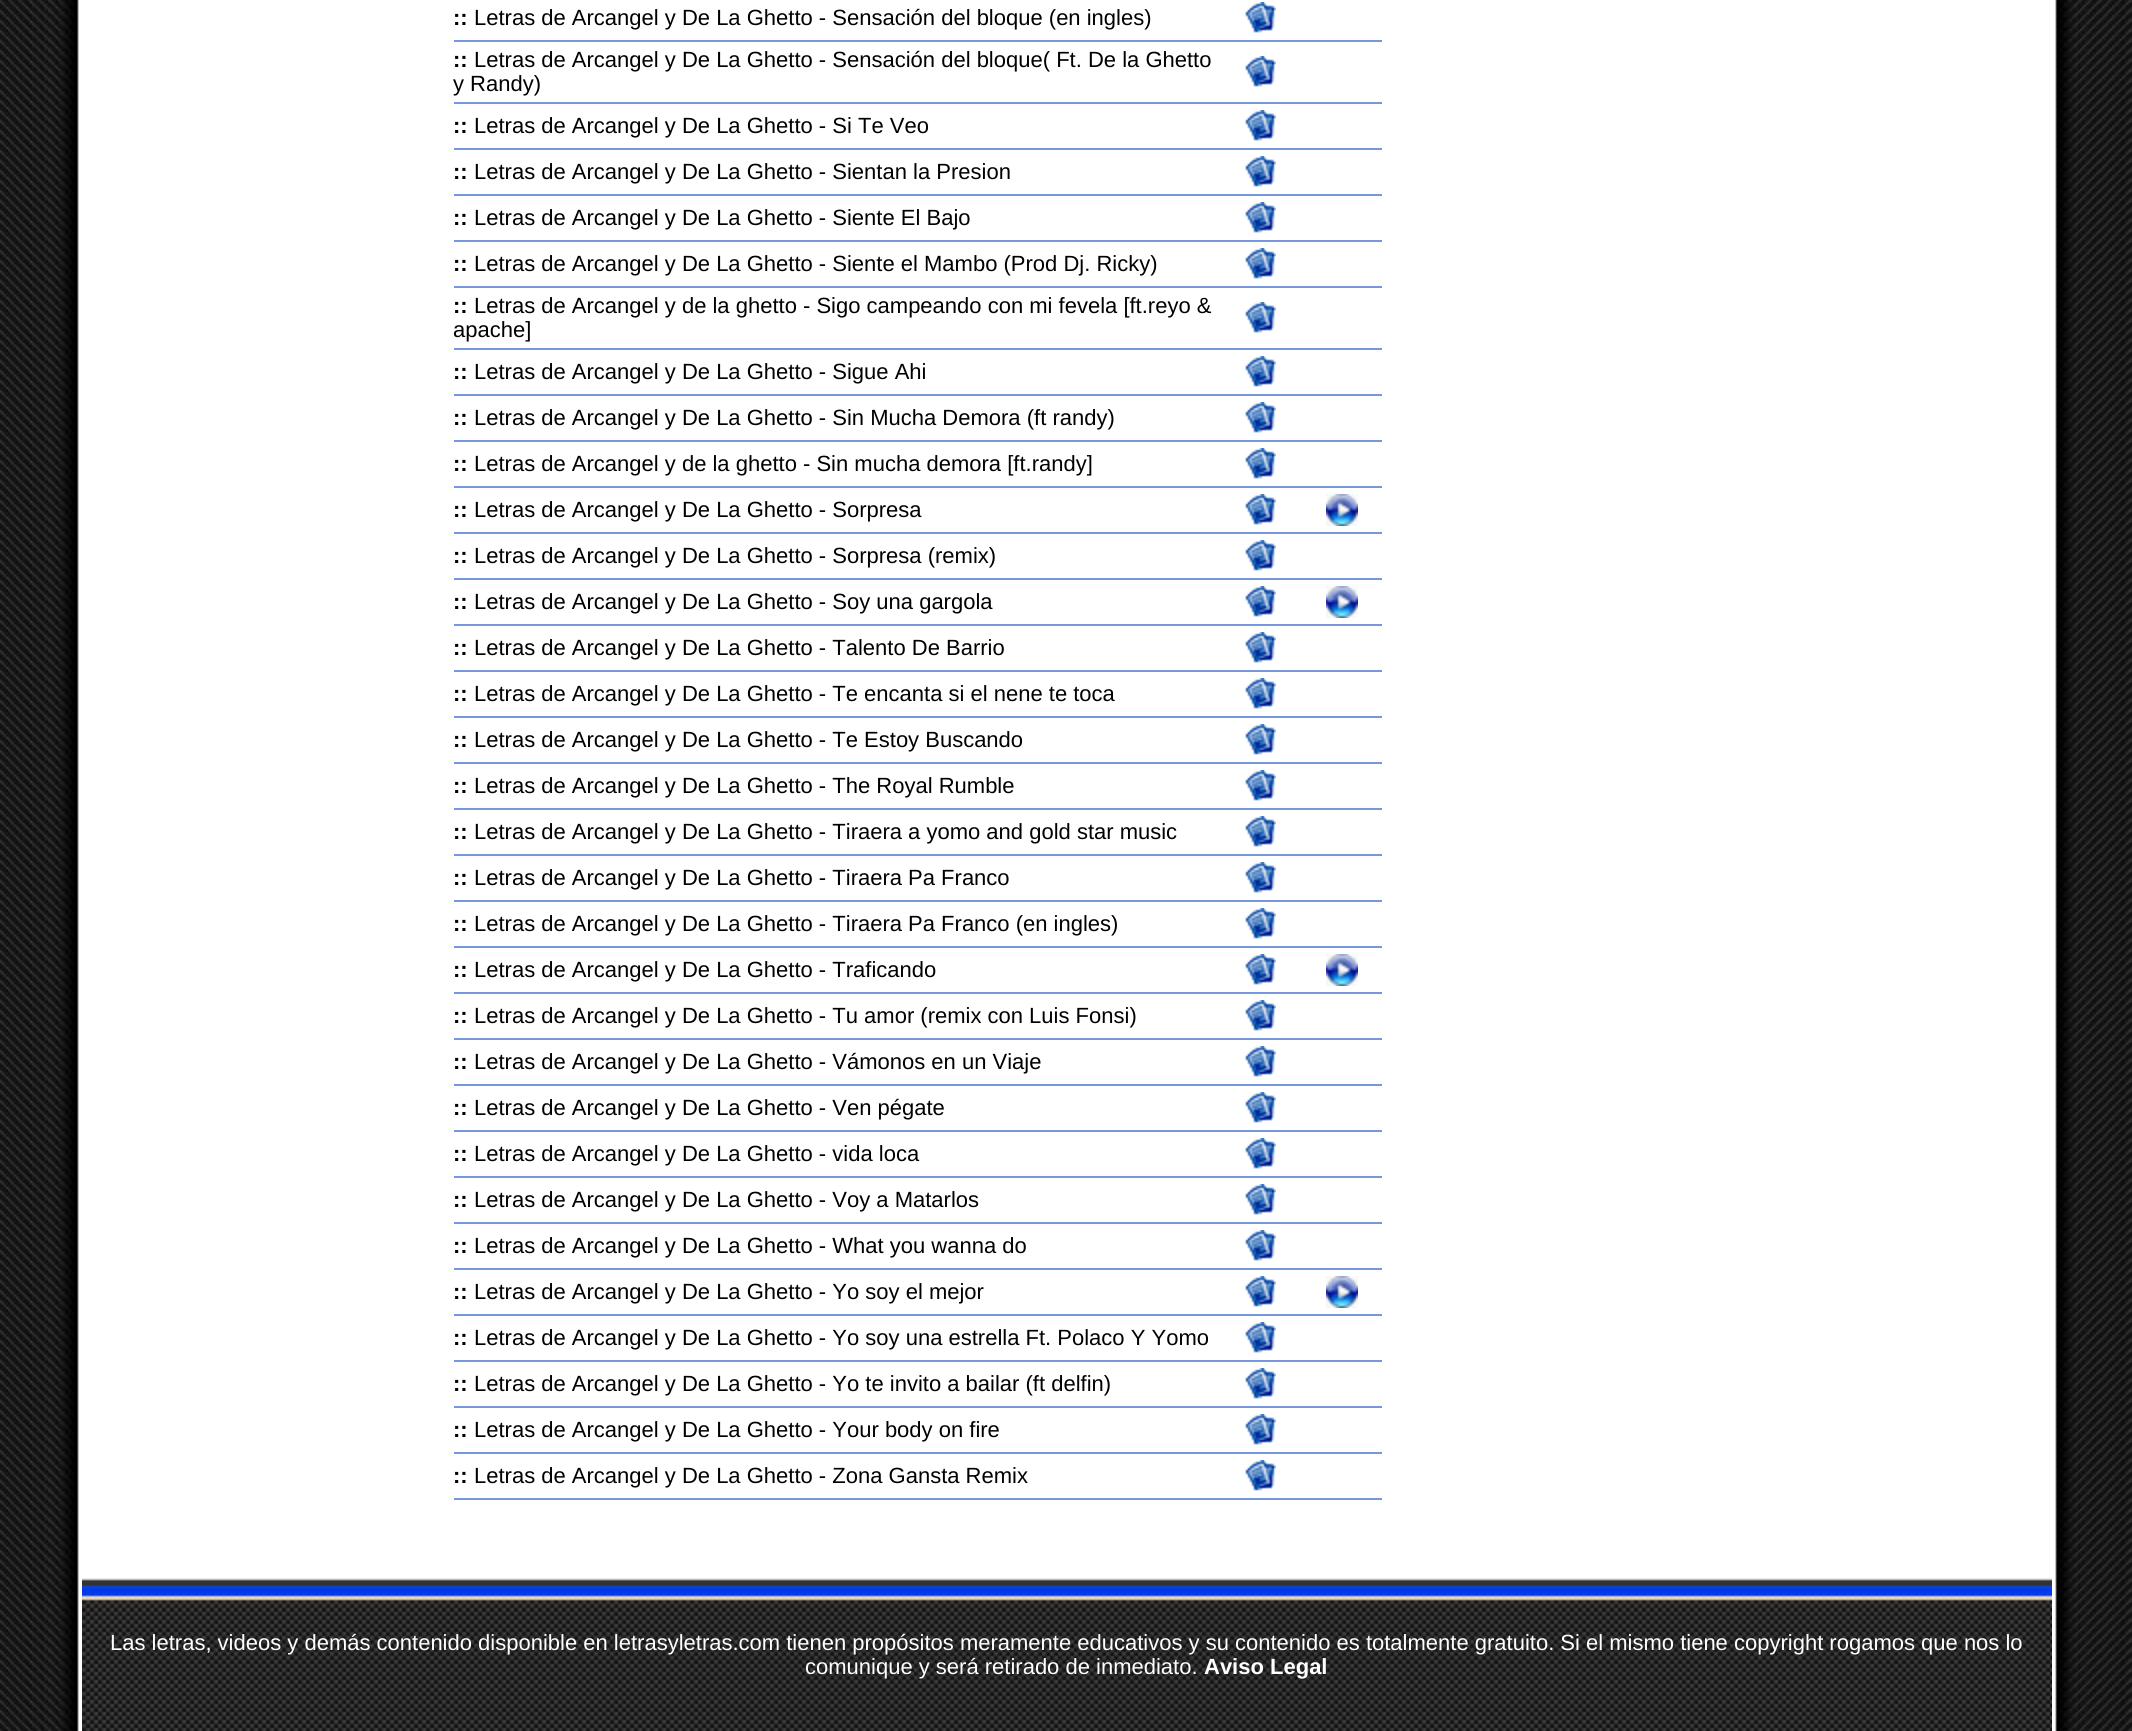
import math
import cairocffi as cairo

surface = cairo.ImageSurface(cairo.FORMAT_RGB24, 2132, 1731)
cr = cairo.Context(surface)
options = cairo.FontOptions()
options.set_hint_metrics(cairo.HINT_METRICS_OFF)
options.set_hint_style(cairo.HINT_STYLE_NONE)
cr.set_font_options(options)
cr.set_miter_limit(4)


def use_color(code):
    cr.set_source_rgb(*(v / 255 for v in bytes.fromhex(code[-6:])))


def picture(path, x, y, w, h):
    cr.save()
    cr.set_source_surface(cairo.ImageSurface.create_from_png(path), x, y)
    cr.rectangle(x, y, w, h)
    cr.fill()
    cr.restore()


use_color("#ffffff")
cr.paint()
picture("img1.png", 0, 0, 2132, 1731)
cr.select_font_face("Liberation Sans", cairo.FONT_SLANT_NORMAL, cairo.FONT_WEIGHT_BOLD)
cr.set_font_size(22)
use_color("#000000")
cr.move_to(453, 25)
cr.show_text("::")
cr.select_font_face("Liberation Sans")
cr.move_to(474, 25)
cr.show_text("Letras de Arcangel y De La Ghetto - Sensación del bloque (en ingles)")
picture("img2.png", 1245, 2, 31, 31)
use_color("#7798dd")
cr.rectangle(454, 40, 928, 2)
cr.fill()
cr.select_font_face("Liberation Sans", cairo.FONT_SLANT_NORMAL, cairo.FONT_WEIGHT_BOLD)
use_color("#000000")
cr.move_to(453, 67)
cr.show_text("::")
cr.select_font_face("Liberation Sans")
cr.move_to(474, 67)
cr.show_text("Letras de Arcangel y De La Ghetto - Sensación del bloque( Ft. De la Ghetto")
cr.move_to(453, 91)
cr.show_text("y Randy)")
picture("img2.png", 1245, 56, 31, 31)
use_color("#7798dd")
cr.rectangle(454, 102, 928, 2)
cr.fill()
cr.select_font_face("Liberation Sans", cairo.FONT_SLANT_NORMAL, cairo.FONT_WEIGHT_BOLD)
use_color("#000000")
cr.move_to(453, 133)
cr.show_text("::")
cr.select_font_face("Liberation Sans")
cr.move_to(474, 133)
cr.show_text("Letras de Arcangel y De La Ghetto - Si Te Veo")
picture("img2.png", 1245, 110, 31, 31)
use_color("#7798dd")
cr.rectangle(454, 148, 928, 2)
cr.fill()
cr.select_font_face("Liberation Sans", cairo.FONT_SLANT_NORMAL, cairo.FONT_WEIGHT_BOLD)
use_color("#000000")
cr.move_to(453, 179)
cr.show_text("::")
cr.select_font_face("Liberation Sans")
cr.move_to(474, 179)
cr.show_text("Letras de Arcangel y De La Ghetto - Sientan la Presion")
picture("img2.png", 1245, 156, 31, 31)
use_color("#7798dd")
cr.rectangle(454, 194, 928, 2)
cr.fill()
cr.select_font_face("Liberation Sans", cairo.FONT_SLANT_NORMAL, cairo.FONT_WEIGHT_BOLD)
use_color("#000000")
cr.move_to(453, 225)
cr.show_text("::")
cr.select_font_face("Liberation Sans")
cr.move_to(474, 225)
cr.show_text("Letras de Arcangel y De La Ghetto - Siente El Bajo")
picture("img2.png", 1245, 202, 31, 31)
use_color("#7798dd")
cr.rectangle(454, 240, 928, 2)
cr.fill()
cr.select_font_face("Liberation Sans", cairo.FONT_SLANT_NORMAL, cairo.FONT_WEIGHT_BOLD)
use_color("#000000")
cr.move_to(453, 271)
cr.show_text("::")
cr.select_font_face("Liberation Sans")
cr.move_to(474, 271)
cr.show_text("Letras de Arcangel y De La Ghetto - Siente el Mambo (Prod Dj. Ricky)")
picture("img2.png", 1245, 248, 31, 31)
use_color("#7798dd")
cr.rectangle(454, 286, 928, 2)
cr.fill()
cr.select_font_face("Liberation Sans", cairo.FONT_SLANT_NORMAL, cairo.FONT_WEIGHT_BOLD)
use_color("#000000")
cr.move_to(453, 313)
cr.show_text("::")
cr.select_font_face("Liberation Sans")
cr.move_to(474, 313)
cr.show_text("Letras de Arcangel y de la ghetto - Sigo campeando con mi fevela [ft.reyo &")
cr.move_to(453, 337)
cr.show_text("apache]")
picture("img2.png", 1245, 302, 31, 31)
use_color("#7798dd")
cr.rectangle(454, 348, 928, 2)
cr.fill()
cr.select_font_face("Liberation Sans", cairo.FONT_SLANT_NORMAL, cairo.FONT_WEIGHT_BOLD)
use_color("#000000")
cr.move_to(453, 379)
cr.show_text("::")
cr.select_font_face("Liberation Sans")
cr.move_to(474, 379)
cr.show_text("Letras de Arcangel y De La Ghetto - Sigue Ahi")
picture("img2.png", 1245, 356, 31, 31)
use_color("#7798dd")
cr.rectangle(454, 394, 928, 2)
cr.fill()
cr.select_font_face("Liberation Sans", cairo.FONT_SLANT_NORMAL, cairo.FONT_WEIGHT_BOLD)
use_color("#000000")
cr.move_to(453, 425)
cr.show_text("::")
cr.select_font_face("Liberation Sans")
cr.move_to(474, 425)
cr.show_text("Letras de Arcangel y De La Ghetto - Sin Mucha Demora (ft randy)")
picture("img2.png", 1245, 402, 31, 31)
use_color("#7798dd")
cr.rectangle(454, 440, 928, 2)
cr.fill()
cr.select_font_face("Liberation Sans", cairo.FONT_SLANT_NORMAL, cairo.FONT_WEIGHT_BOLD)
use_color("#000000")
cr.move_to(453, 471)
cr.show_text("::")
cr.select_font_face("Liberation Sans")
cr.move_to(474, 471)
cr.show_text("Letras de Arcangel y de la ghetto - Sin mucha demora [ft.randy]")
picture("img2.png", 1245, 448, 31, 31)
use_color("#7798dd")
cr.rectangle(454, 486, 928, 2)
cr.fill()
cr.select_font_face("Liberation Sans", cairo.FONT_SLANT_NORMAL, cairo.FONT_WEIGHT_BOLD)
use_color("#000000")
cr.move_to(453, 517)
cr.show_text("::")
cr.select_font_face("Liberation Sans")
cr.move_to(474, 517)
cr.show_text("Letras de Arcangel y De La Ghetto - Sorpresa")
picture("img2.png", 1245, 494, 31, 31)
picture("img3.png", 1326, 494, 32, 32)
use_color("#7798dd")
cr.rectangle(454, 532, 928, 2)
cr.fill()
cr.select_font_face("Liberation Sans", cairo.FONT_SLANT_NORMAL, cairo.FONT_WEIGHT_BOLD)
use_color("#000000")
cr.move_to(453, 563)
cr.show_text("::")
cr.select_font_face("Liberation Sans")
cr.move_to(474, 563)
cr.show_text("Letras de Arcangel y De La Ghetto - Sorpresa (remix)")
picture("img2.png", 1245, 540, 31, 31)
use_color("#7798dd")
cr.rectangle(454, 578, 928, 2)
cr.fill()
cr.select_font_face("Liberation Sans", cairo.FONT_SLANT_NORMAL, cairo.FONT_WEIGHT_BOLD)
use_color("#000000")
cr.move_to(453, 609)
cr.show_text("::")
cr.select_font_face("Liberation Sans")
cr.move_to(474, 609)
cr.show_text("Letras de Arcangel y De La Ghetto - Soy una gargola")
picture("img2.png", 1245, 586, 31, 31)
picture("img3.png", 1326, 586, 32, 32)
use_color("#7798dd")
cr.rectangle(454, 624, 928, 2)
cr.fill()
cr.select_font_face("Liberation Sans", cairo.FONT_SLANT_NORMAL, cairo.FONT_WEIGHT_BOLD)
use_color("#000000")
cr.move_to(453, 655)
cr.show_text("::")
cr.select_font_face("Liberation Sans")
cr.move_to(474, 655)
cr.show_text("Letras de Arcangel y De La Ghetto - Talento De Barrio")
picture("img2.png", 1245, 632, 31, 31)
use_color("#7798dd")
cr.rectangle(454, 670, 928, 2)
cr.fill()
cr.select_font_face("Liberation Sans", cairo.FONT_SLANT_NORMAL, cairo.FONT_WEIGHT_BOLD)
use_color("#000000")
cr.move_to(453, 701)
cr.show_text("::")
cr.select_font_face("Liberation Sans")
cr.move_to(474, 701)
cr.show_text("Letras de Arcangel y De La Ghetto - Te encanta si el nene te toca")
picture("img2.png", 1245, 678, 31, 31)
use_color("#7798dd")
cr.rectangle(454, 716, 928, 2)
cr.fill()
cr.select_font_face("Liberation Sans", cairo.FONT_SLANT_NORMAL, cairo.FONT_WEIGHT_BOLD)
use_color("#000000")
cr.move_to(453, 747)
cr.show_text("::")
cr.select_font_face("Liberation Sans")
cr.move_to(474, 747)
cr.show_text("Letras de Arcangel y De La Ghetto - Te Estoy Buscando")
picture("img2.png", 1245, 724, 31, 31)
use_color("#7798dd")
cr.rectangle(454, 762, 928, 2)
cr.fill()
cr.select_font_face("Liberation Sans", cairo.FONT_SLANT_NORMAL, cairo.FONT_WEIGHT_BOLD)
use_color("#000000")
cr.move_to(453, 793)
cr.show_text("::")
cr.select_font_face("Liberation Sans")
cr.move_to(474, 793)
cr.show_text("Letras de Arcangel y De La Ghetto - The Royal Rumble")
picture("img2.png", 1245, 770, 31, 31)
use_color("#7798dd")
cr.rectangle(454, 808, 928, 2)
cr.fill()
cr.select_font_face("Liberation Sans", cairo.FONT_SLANT_NORMAL, cairo.FONT_WEIGHT_BOLD)
use_color("#000000")
cr.move_to(453, 839)
cr.show_text("::")
cr.select_font_face("Liberation Sans")
cr.move_to(474, 839)
cr.show_text("Letras de Arcangel y De La Ghetto - Tiraera a yomo and gold star music")
picture("img2.png", 1245, 816, 31, 31)
use_color("#7798dd")
cr.rectangle(454, 854, 928, 2)
cr.fill()
cr.select_font_face("Liberation Sans", cairo.FONT_SLANT_NORMAL, cairo.FONT_WEIGHT_BOLD)
use_color("#000000")
cr.move_to(453, 885)
cr.show_text("::")
cr.select_font_face("Liberation Sans")
cr.move_to(474, 885)
cr.show_text("Letras de Arcangel y De La Ghetto - Tiraera Pa Franco")
picture("img2.png", 1245, 862, 31, 31)
use_color("#7798dd")
cr.rectangle(454, 900, 928, 2)
cr.fill()
cr.select_font_face("Liberation Sans", cairo.FONT_SLANT_NORMAL, cairo.FONT_WEIGHT_BOLD)
use_color("#000000")
cr.move_to(453, 931)
cr.show_text("::")
cr.select_font_face("Liberation Sans")
cr.move_to(474, 931)
cr.show_text("Letras de Arcangel y De La Ghetto - Tiraera Pa Franco (en ingles)")
picture("img2.png", 1245, 908, 31, 31)
use_color("#7798dd")
cr.rectangle(454, 946, 928, 2)
cr.fill()
cr.select_font_face("Liberation Sans", cairo.FONT_SLANT_NORMAL, cairo.FONT_WEIGHT_BOLD)
use_color("#000000")
cr.move_to(453, 977)
cr.show_text("::")
cr.select_font_face("Liberation Sans")
cr.move_to(474, 977)
cr.show_text("Letras de Arcangel y De La Ghetto - Traficando")
picture("img2.png", 1245, 954, 31, 31)
picture("img3.png", 1326, 954, 32, 32)
use_color("#7798dd")
cr.rectangle(454, 992, 928, 2)
cr.fill()
cr.select_font_face("Liberation Sans", cairo.FONT_SLANT_NORMAL, cairo.FONT_WEIGHT_BOLD)
use_color("#000000")
cr.move_to(453, 1023)
cr.show_text("::")
cr.select_font_face("Liberation Sans")
cr.move_to(474, 1023)
cr.show_text("Letras de Arcangel y De La Ghetto - Tu amor (remix con Luis Fonsi)")
picture("img2.png", 1245, 1000, 31, 31)
use_color("#7798dd")
cr.rectangle(454, 1038, 928, 2)
cr.fill()
cr.select_font_face("Liberation Sans", cairo.FONT_SLANT_NORMAL, cairo.FONT_WEIGHT_BOLD)
use_color("#000000")
cr.move_to(453, 1069)
cr.show_text("::")
cr.select_font_face("Liberation Sans")
cr.move_to(474, 1069)
cr.show_text("Letras de Arcangel y De La Ghetto - Vámonos en un Viaje")
picture("img2.png", 1245, 1046, 31, 31)
use_color("#7798dd")
cr.rectangle(454, 1084, 928, 2)
cr.fill()
cr.select_font_face("Liberation Sans", cairo.FONT_SLANT_NORMAL, cairo.FONT_WEIGHT_BOLD)
use_color("#000000")
cr.move_to(453, 1115)
cr.show_text("::")
cr.select_font_face("Liberation Sans")
cr.move_to(474, 1115)
cr.show_text("Letras de Arcangel y De La Ghetto - Ven pégate")
picture("img2.png", 1245, 1092, 31, 31)
use_color("#7798dd")
cr.rectangle(454, 1130, 928, 2)
cr.fill()
cr.select_font_face("Liberation Sans", cairo.FONT_SLANT_NORMAL, cairo.FONT_WEIGHT_BOLD)
use_color("#000000")
cr.move_to(453, 1161)
cr.show_text("::")
cr.select_font_face("Liberation Sans")
cr.move_to(474, 1161)
cr.show_text("Letras de Arcangel y De La Ghetto - vida loca")
picture("img2.png", 1245, 1138, 31, 31)
use_color("#7798dd")
cr.rectangle(454, 1176, 928, 2)
cr.fill()
cr.select_font_face("Liberation Sans", cairo.FONT_SLANT_NORMAL, cairo.FONT_WEIGHT_BOLD)
use_color("#000000")
cr.move_to(453, 1207)
cr.show_text("::")
cr.select_font_face("Liberation Sans")
cr.move_to(474, 1207)
cr.show_text("Letras de Arcangel y De La Ghetto - Voy a Matarlos")
picture("img2.png", 1245, 1184, 31, 31)
use_color("#7798dd")
cr.rectangle(454, 1222, 928, 2)
cr.fill()
cr.select_font_face("Liberation Sans", cairo.FONT_SLANT_NORMAL, cairo.FONT_WEIGHT_BOLD)
use_color("#000000")
cr.move_to(453, 1253)
cr.show_text("::")
cr.select_font_face("Liberation Sans")
cr.move_to(474, 1253)
cr.show_text("Letras de Arcangel y De La Ghetto - What you wanna do")
picture("img2.png", 1245, 1230, 31, 31)
use_color("#7798dd")
cr.rectangle(454, 1268, 928, 2)
cr.fill()
cr.select_font_face("Liberation Sans", cairo.FONT_SLANT_NORMAL, cairo.FONT_WEIGHT_BOLD)
use_color("#000000")
cr.move_to(453, 1299)
cr.show_text("::")
cr.select_font_face("Liberation Sans")
cr.move_to(474, 1299)
cr.show_text("Letras de Arcangel y De La Ghetto - Yo soy el mejor")
picture("img2.png", 1245, 1276, 31, 31)
picture("img3.png", 1326, 1276, 32, 32)
use_color("#7798dd")
cr.rectangle(454, 1314, 928, 2)
cr.fill()
cr.select_font_face("Liberation Sans", cairo.FONT_SLANT_NORMAL, cairo.FONT_WEIGHT_BOLD)
use_color("#000000")
cr.move_to(453, 1345)
cr.show_text("::")
cr.select_font_face("Liberation Sans")
cr.move_to(474, 1345)
cr.show_text("Letras de Arcangel y De La Ghetto - Yo soy una estrella Ft. Polaco Y Yomo")
picture("img2.png", 1245, 1322, 31, 31)
use_color("#7798dd")
cr.rectangle(454, 1360, 928, 2)
cr.fill()
cr.select_font_face("Liberation Sans", cairo.FONT_SLANT_NORMAL, cairo.FONT_WEIGHT_BOLD)
use_color("#000000")
cr.move_to(453, 1391)
cr.show_text("::")
cr.select_font_face("Liberation Sans")
cr.move_to(474, 1391)
cr.show_text("Letras de Arcangel y De La Ghetto - Yo te invito a bailar (ft delfin)")
picture("img2.png", 1245, 1368, 31, 31)
use_color("#7798dd")
cr.rectangle(454, 1406, 928, 2)
cr.fill()
cr.select_font_face("Liberation Sans", cairo.FONT_SLANT_NORMAL, cairo.FONT_WEIGHT_BOLD)
use_color("#000000")
cr.move_to(453, 1437)
cr.show_text("::")
cr.select_font_face("Liberation Sans")
cr.move_to(474, 1437)
cr.show_text("Letras de Arcangel y De La Ghetto - Your body on fire")
picture("img2.png", 1245, 1414, 31, 31)
use_color("#7798dd")
cr.rectangle(454, 1452, 928, 2)
cr.fill()
cr.select_font_face("Liberation Sans", cairo.FONT_SLANT_NORMAL, cairo.FONT_WEIGHT_BOLD)
use_color("#000000")
cr.move_to(453, 1483)
cr.show_text("::")
cr.select_font_face("Liberation Sans")
cr.move_to(474, 1483)
cr.show_text("Letras de Arcangel y De La Ghetto - Zona Gansta Remix")
picture("img2.png", 1245, 1460, 31, 31)
use_color("#7798dd")
cr.rectangle(454, 1498, 928, 2)
cr.fill()
picture("img4.png", 82, 1578, 1970, 153)
use_color("#ffffff")
cr.move_to(110, 1650)
cr.show_text("Las letras, videos y demás contenido disponible en letrasyletras.com tienen propósitos meramente educativos y su contenido es totalmente gratuito. Si el mismo tiene copyright rogamos que nos lo")
cr.move_to(805, 1674)
cr.show_text("comunique y será retirado de inmediato.")
cr.select_font_face("Liberation Sans", cairo.FONT_SLANT_NORMAL, cairo.FONT_WEIGHT_BOLD)
cr.move_to(1204, 1674)
cr.show_text("Aviso Legal")
surface.write_to_png("result.png")
